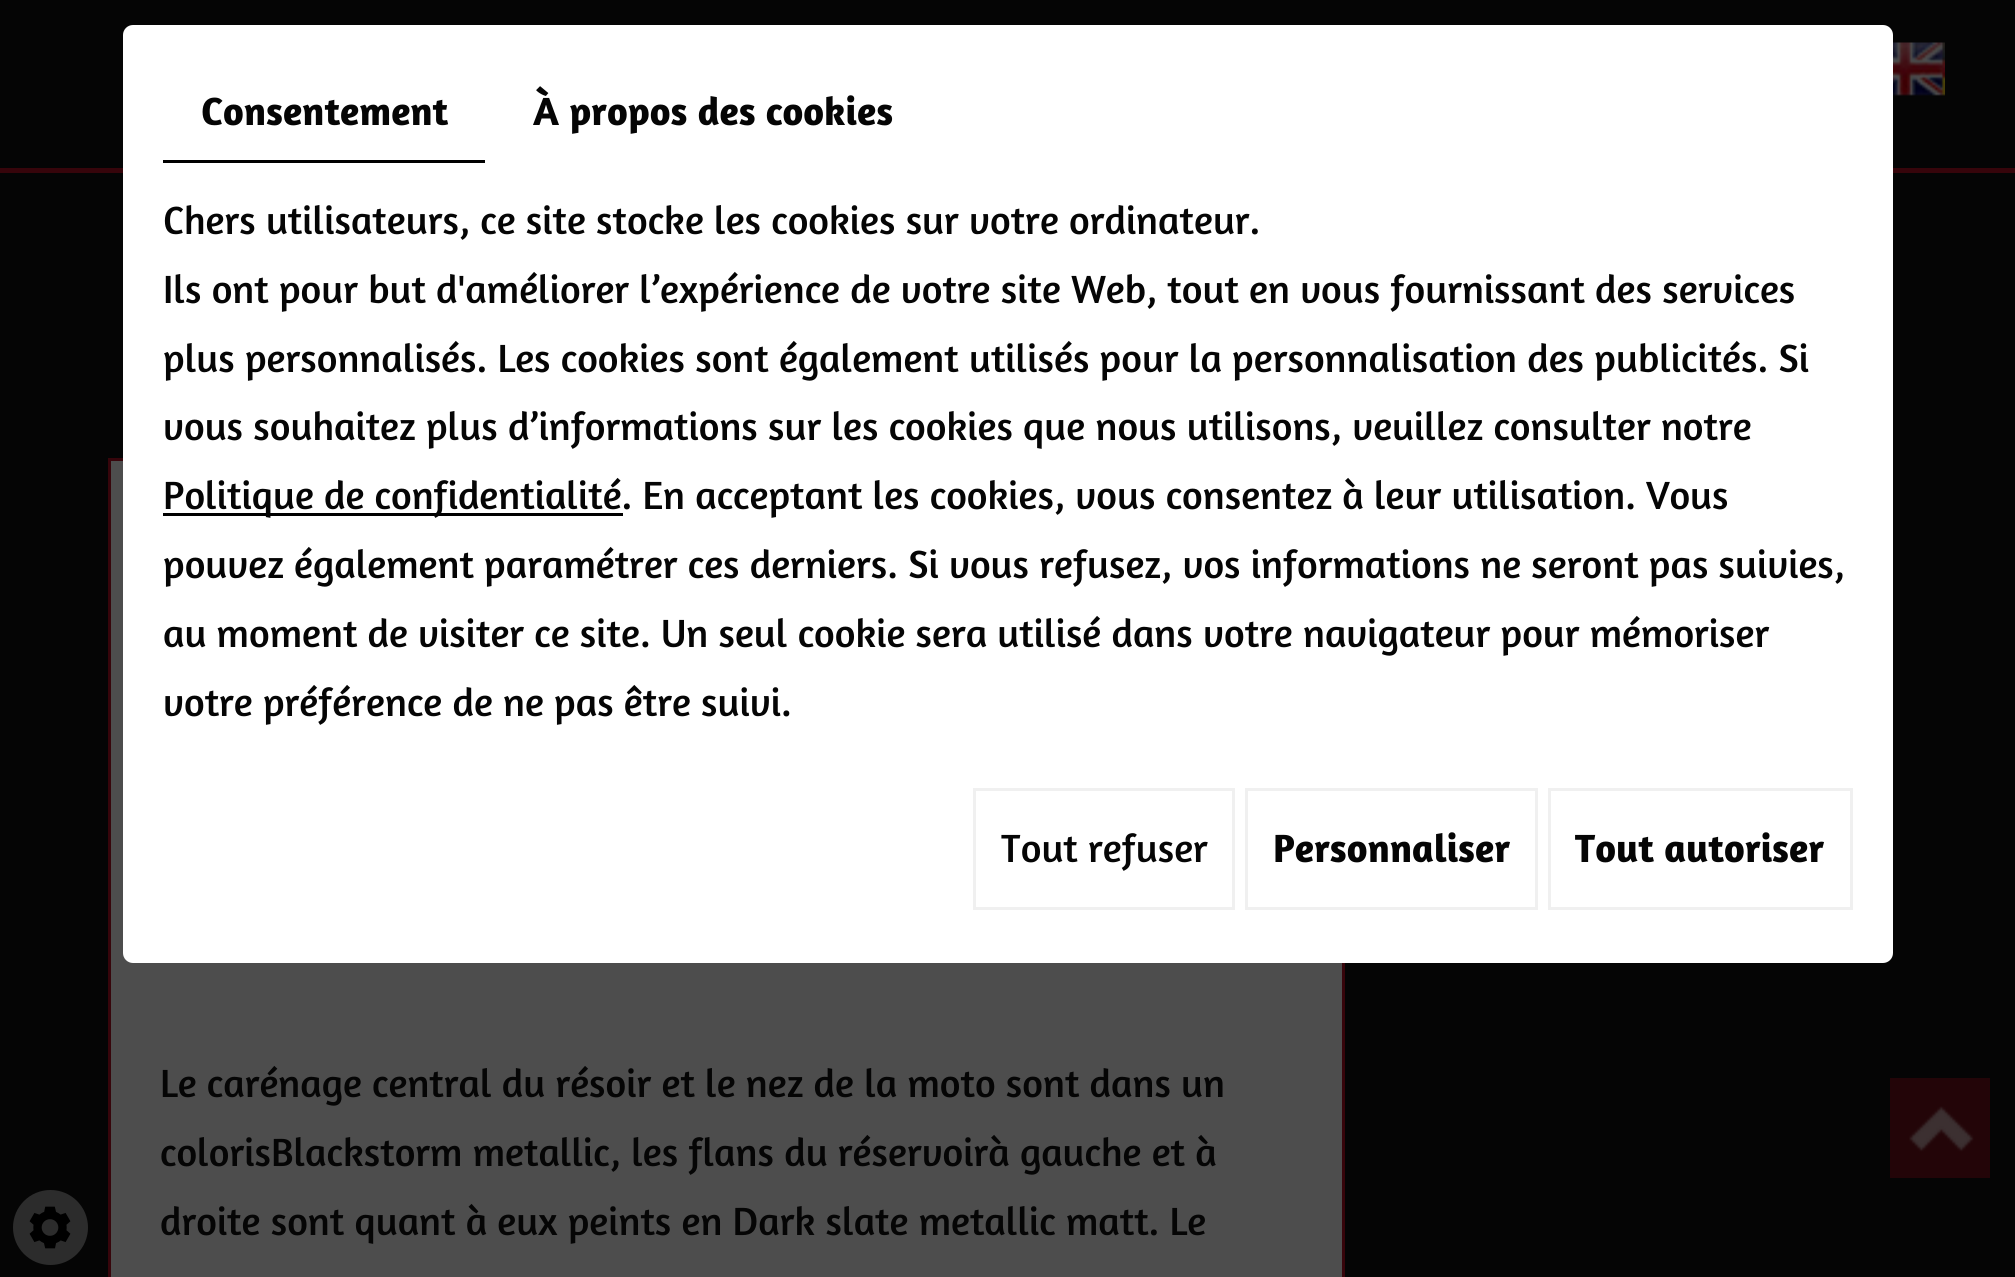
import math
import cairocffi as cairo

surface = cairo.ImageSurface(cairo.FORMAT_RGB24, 2015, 1277)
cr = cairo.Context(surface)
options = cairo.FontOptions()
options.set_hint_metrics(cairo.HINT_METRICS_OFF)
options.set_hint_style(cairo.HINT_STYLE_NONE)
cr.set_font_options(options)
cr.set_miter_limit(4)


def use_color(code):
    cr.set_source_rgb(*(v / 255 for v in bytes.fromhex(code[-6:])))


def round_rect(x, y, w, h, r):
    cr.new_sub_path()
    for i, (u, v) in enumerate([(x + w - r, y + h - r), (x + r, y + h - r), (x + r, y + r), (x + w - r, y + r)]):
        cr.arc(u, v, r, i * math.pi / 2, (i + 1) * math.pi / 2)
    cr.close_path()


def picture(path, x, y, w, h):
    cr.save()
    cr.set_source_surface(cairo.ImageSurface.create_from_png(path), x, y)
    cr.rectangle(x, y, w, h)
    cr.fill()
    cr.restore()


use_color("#050505")
cr.paint()
use_color("#37050b")
cr.rectangle(0, 168, 2015, 5)
cr.fill()
use_color("#4d4d4d")
cr.rectangle(109.5, 576.5, 1234, 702)
cr.fill_preserve()
use_color("#37050b")
cr.set_line_width(3)
cr.stroke()
use_color("#ffffff")
round_rect(123, 25, 1770, 938, 10)
cr.fill()
use_color("#000000")
cr.rectangle(163, 160, 322, 3)
cr.fill()
cr.select_font_face("Amaranth", cairo.FONT_SLANT_NORMAL, cairo.FONT_WEIGHT_BOLD)
cr.set_font_size(40)
use_color("#050505")
cr.move_to(201, 125)
cr.show_text("Consentement")
cr.move_to(533, 125)
cr.show_text("À propos des cookies")
cr.select_font_face("Amaranth")
cr.move_to(163, 234)
cr.show_text("Chers utilisateurs, ce site stocke les cookies sur votre ordinateur.")
cr.move_to(163, 303)
cr.show_text("Ils ont pour but d'améliorer l’expérience de votre site Web, tout en vous fournissant des services")
cr.move_to(163, 372)
cr.show_text("plus personnalisés. Les cookies sont également utilisés pour la personnalisation des publicités. Si")
cr.move_to(163, 440)
cr.show_text("vous souhaitez plus d’informations sur les cookies que nous utilisons, veuillez consulter notre")
use_color("#000000")
cr.rectangle(163, 513, 460, 3)
cr.fill()
use_color("#050505")
cr.move_to(163, 509)
cr.show_text("Politique de confidentialité. En acceptant les cookies, vous consentez à leur utilisation. Vous")
cr.move_to(163, 578)
cr.show_text("pouvez également paramétrer ces derniers. Si vous refusez, vos informations ne seront pas suivies,")
cr.move_to(163, 647)
cr.show_text("au moment de visiter ce site. Un seul cookie sera utilisé dans votre navigateur pour mémoriser")
cr.move_to(163, 716)
cr.show_text("votre préférence de ne pas être suivi.")
cr.rectangle(974.5, 789.5, 259, 119)
use_color("#f0f0f0")
cr.stroke()
use_color("#050505")
cr.move_to(1001, 862)
cr.show_text("Tout refuser")
cr.rectangle(1246.5, 789.5, 290, 119)
use_color("#f0f0f0")
cr.stroke()
cr.select_font_face("Amaranth", cairo.FONT_SLANT_NORMAL, cairo.FONT_WEIGHT_BOLD)
use_color("#050505")
cr.move_to(1273, 862)
cr.show_text("Personnaliser")
cr.rectangle(1549.5, 789.5, 302, 119)
use_color("#f0f0f0")
cr.stroke()
use_color("#050505")
cr.move_to(1575, 862)
cr.show_text("Tout autoriser")
use_color("#2c2c2c")
cr.new_path()
cr.arc(50.5, 1227.5, 37.5, 0, 2 * math.pi)
cr.fill()
picture("img1.png", 29, 1206, 42, 43)
picture("img2.png", 1893, 42, 52, 54)
use_color("#4d4d4d")
cr.rectangle(111, 461, 12, 114)
cr.fill()
use_color("#37050b")
cr.rectangle(108, 458, 15, 3)
cr.fill()
use_color("#4d4d4d")
cr.rectangle(108, 575, 15, 3)
cr.fill()
use_color("#37050b")
cr.rectangle(108, 458, 3, 120)
cr.fill()
cr.select_font_face("Amaranth")
use_color("#050505")
cr.move_to(160, 1097)
cr.show_text("Le carénage central du résoir et le nez de la moto sont dans un")
cr.move_to(160, 1166)
cr.show_text("colorisBlackstorm metallic, les flans du réservoirà gauche et à")
cr.move_to(160, 1235)
cr.show_text("droite sont quant à eux peints en Dark slate metallic matt. Le")
use_color("#230508")
cr.rectangle(1890, 1078, 100, 100)
cr.fill()
picture("img3.png", 1909, 1106, 65, 46)
surface.write_to_png("result.png")
